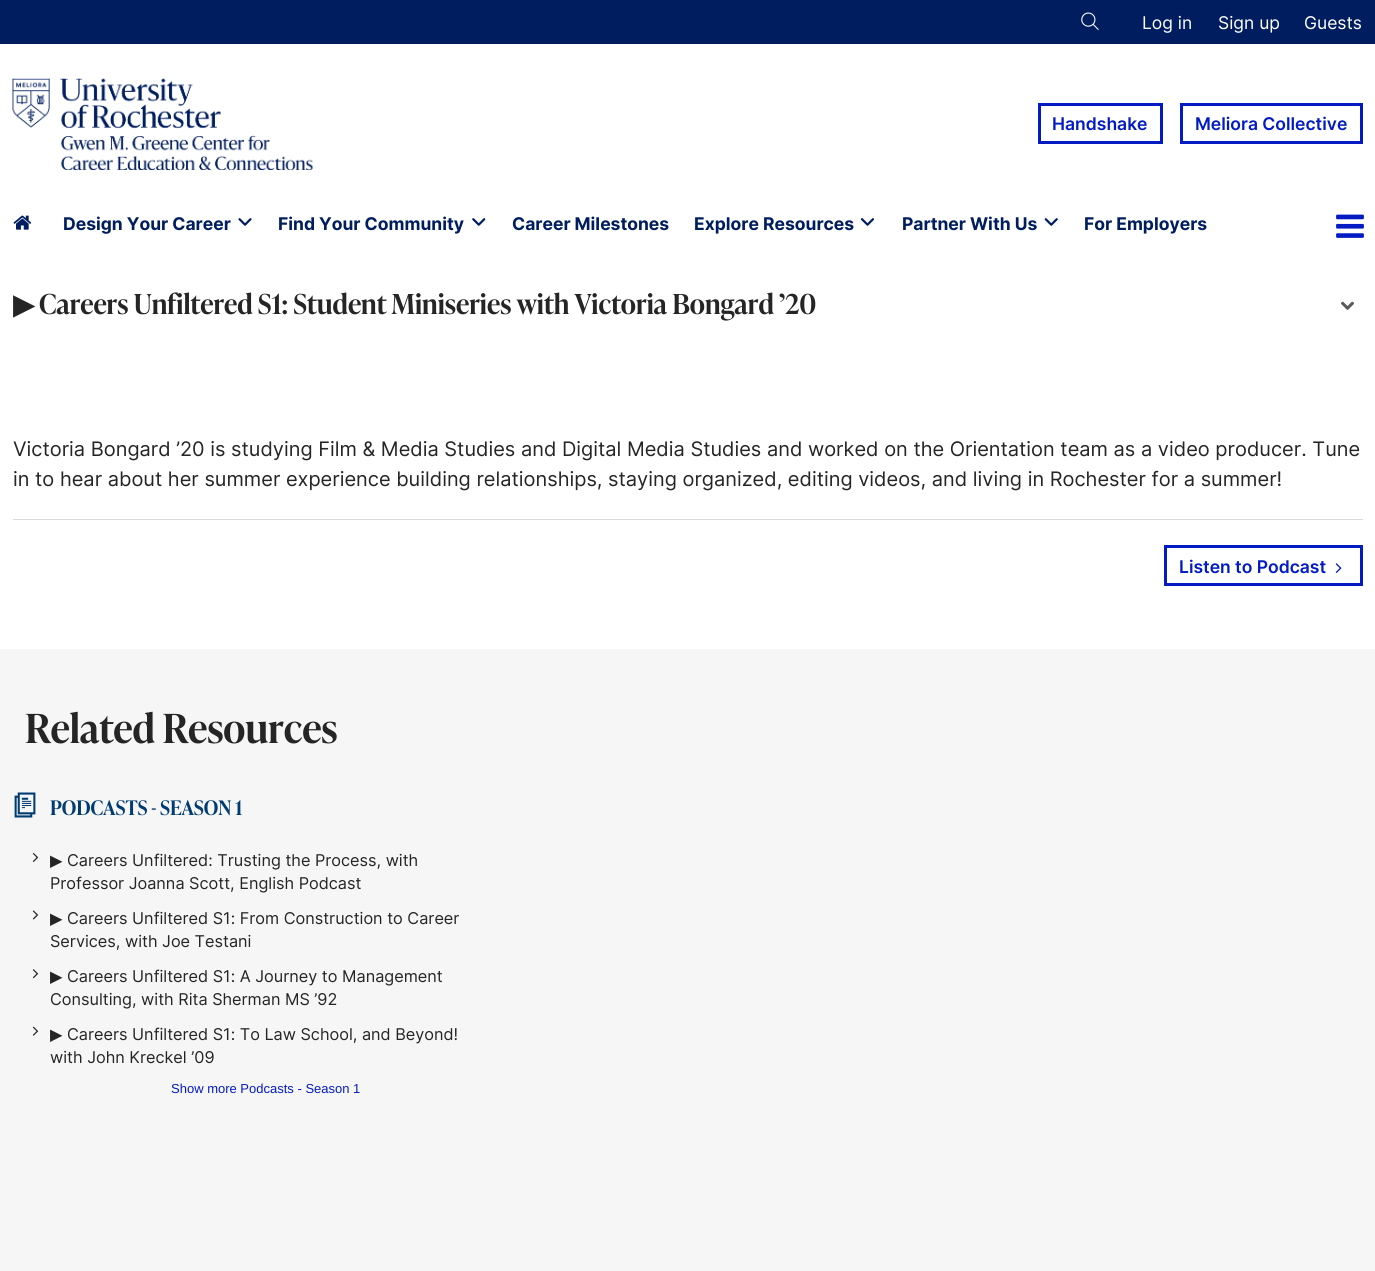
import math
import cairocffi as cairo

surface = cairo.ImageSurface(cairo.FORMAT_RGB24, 1375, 1271)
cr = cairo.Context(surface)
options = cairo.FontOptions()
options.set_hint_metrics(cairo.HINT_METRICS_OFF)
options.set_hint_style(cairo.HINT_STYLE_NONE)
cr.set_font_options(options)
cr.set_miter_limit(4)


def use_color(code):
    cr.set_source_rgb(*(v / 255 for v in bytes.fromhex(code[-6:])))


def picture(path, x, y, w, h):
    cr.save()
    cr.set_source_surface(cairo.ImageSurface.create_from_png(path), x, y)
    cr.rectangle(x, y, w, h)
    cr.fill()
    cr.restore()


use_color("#ffffff")
cr.paint()
use_color("#001e5f")
cr.rectangle(0, 0, 1375, 44)
cr.fill()
picture("img1.png", 1081, 12, 18, 18)
cr.select_font_face("Inter")
cr.set_font_size(17.5)
use_color("#ffffff")
cr.move_to(1142, 29)
cr.show_text("Log in")
cr.move_to(1218, 29)
cr.show_text("Sign up")
cr.move_to(1304, 29)
cr.show_text("Guests")
picture("img2.png", 12, 78, 301, 92)
cr.rectangle(1039.5, 104.5, 122, 38)
use_color("#021bc3")
cr.set_line_width(3)
cr.stroke()
cr.select_font_face("Inter SemiBold")
cr.move_to(1052, 130)
cr.show_text("Handshake")
cr.rectangle(1181.5, 104.5, 180, 38)
cr.stroke()
cr.move_to(1195, 130)
cr.show_text("Meliora Collective")
picture("img3.png", 13, 215, 19, 15)
cr.select_font_face("Inter", cairo.FONT_SLANT_NORMAL, cairo.FONT_WEIGHT_BOLD)
use_color("#001e5f")
cr.move_to(63, 230)
cr.show_text("Design Your Career")
picture("img4.png", 238, 218, 14, 8)
cr.move_to(278, 230)
cr.show_text("Find Your Community")
picture("img5.png", 472, 218, 14, 8)
cr.move_to(512, 230)
cr.show_text("Career Milestones")
cr.move_to(694, 230)
cr.show_text("Explore Resources")
picture("img6.png", 861, 218, 13, 8)
cr.move_to(902, 230)
cr.show_text("Partner With Us")
picture("img7.png", 1044, 218, 14, 8)
cr.move_to(1084, 230)
cr.show_text("For Employers")
picture("img8.png", 1336, 214, 28, 24)
cr.select_font_face("DejaVu Sans", cairo.FONT_SLANT_NORMAL, cairo.FONT_WEIGHT_BOLD)
cr.set_font_size(27.5)
use_color("#252525")
cr.move_to(13, 314)
cr.show_text("▶")
cr.select_font_face("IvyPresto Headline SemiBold")
cr.move_to(39, 314)
cr.show_text("Careers Unfiltered S1: Student Miniseries with Victoria Bongard ’20")
picture("img9.png", 1341, 301, 13, 9)
cr.select_font_face("Inter")
cr.set_font_size(20)
cr.move_to(13, 456)
cr.show_text("Victoria Bongard ’20 is studying Film & Media Studies and Digital Media Studies and worked on the Orientation team as a video producer. Tune")
cr.move_to(13, 486)
cr.show_text("in to hear about her summer experience building relationships, staying organized, editing videos, and living in Rochester for a summer!")
use_color("#dbdbdb")
cr.rectangle(13, 519, 1350, 1)
cr.fill()
cr.rectangle(1165.5, 546.5, 196, 38)
use_color("#021bc3")
cr.stroke()
cr.select_font_face("Inter SemiBold")
cr.set_font_size(17.5)
cr.move_to(1179, 573)
cr.show_text("Listen to Podcast")
picture("img10.png", 1335, 563, 7, 10)
use_color("#f6f6f6")
cr.rectangle(0, 649, 1375, 622)
cr.fill()
cr.select_font_face("IvyPresto Headline SemiBold")
cr.set_font_size(40)
use_color("#252525")
cr.move_to(25, 743)
cr.show_text("Related Resources")
picture("img11.png", 14, 792, 22, 26)
cr.set_font_size(20)
use_color("#003b71")
cr.move_to(50, 815)
cr.show_text("PODCASTS - SEASON 1")
picture("img12.png", 32, 853, 7, 9)
cr.select_font_face("DejaVu Sans")
cr.set_font_size(16.25)
use_color("#252525")
cr.move_to(50, 866)
cr.show_text("▶")
cr.select_font_face("Inter")
cr.move_to(67, 866)
cr.show_text("Careers Unfiltered: Trusting the Process, with")
cr.move_to(50, 889)
cr.show_text("Professor Joanna Scott, English Podcast")
picture("img13.png", 32, 910, 7, 10)
cr.select_font_face("DejaVu Sans")
cr.move_to(50, 924)
cr.show_text("▶")
cr.select_font_face("Inter")
cr.move_to(67, 924)
cr.show_text("Careers Unfiltered S1: From Construction to Career")
cr.move_to(50, 947)
cr.show_text("Services, with Joe Testani")
picture("img14.png", 32, 969, 7, 10)
cr.select_font_face("DejaVu Sans")
cr.move_to(50, 982)
cr.show_text("▶")
cr.select_font_face("Inter")
cr.move_to(67, 982)
cr.show_text("Careers Unfiltered S1: A Journey to Management")
cr.move_to(50, 1005)
cr.show_text("Consulting, with Rita Sherman MS ’92")
picture("img15.png", 32, 1026, 7, 10)
cr.select_font_face("DejaVu Sans")
cr.move_to(50, 1040)
cr.show_text("▶")
cr.select_font_face("Inter")
cr.move_to(67, 1040)
cr.show_text("Careers Unfiltered S1: To Law School, and Beyond!")
cr.move_to(50, 1063)
cr.show_text("with John Kreckel ’09")
cr.select_font_face("Liberation Sans")
cr.set_font_size(13)
use_color("#021bc3")
cr.move_to(171, 1093)
cr.show_text("Show more Podcasts - Season 1")
surface.write_to_png("result.png")
